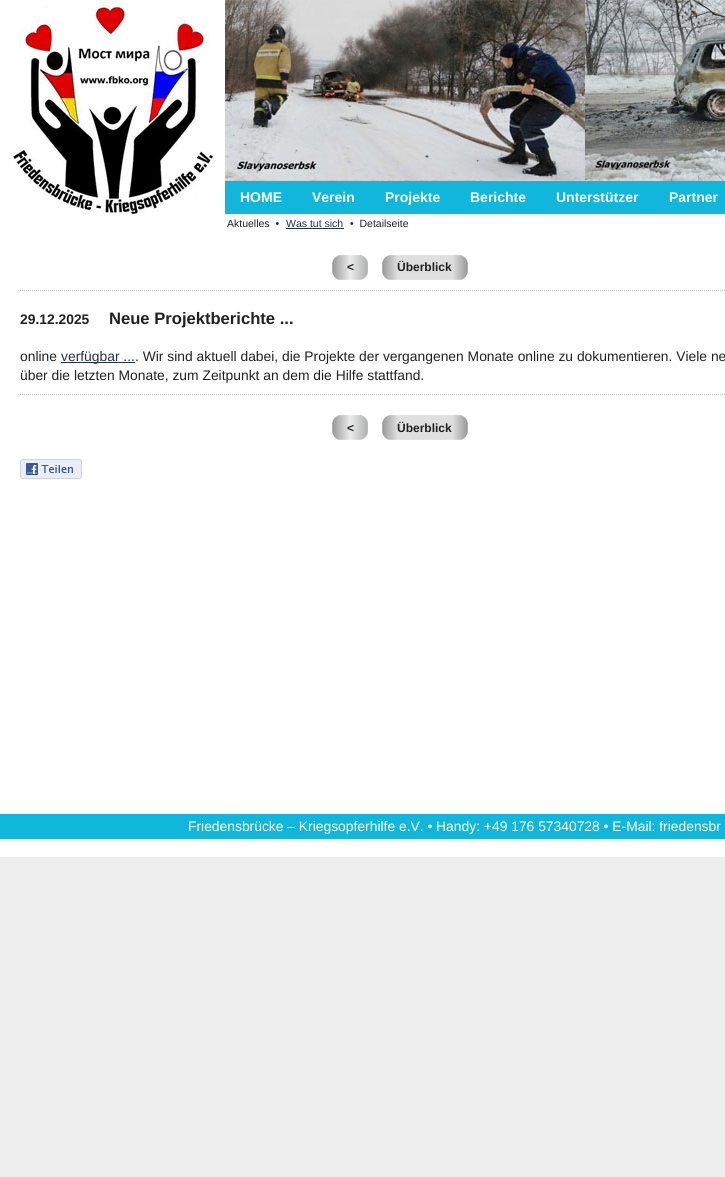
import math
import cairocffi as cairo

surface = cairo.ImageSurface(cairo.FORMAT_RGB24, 725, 1177)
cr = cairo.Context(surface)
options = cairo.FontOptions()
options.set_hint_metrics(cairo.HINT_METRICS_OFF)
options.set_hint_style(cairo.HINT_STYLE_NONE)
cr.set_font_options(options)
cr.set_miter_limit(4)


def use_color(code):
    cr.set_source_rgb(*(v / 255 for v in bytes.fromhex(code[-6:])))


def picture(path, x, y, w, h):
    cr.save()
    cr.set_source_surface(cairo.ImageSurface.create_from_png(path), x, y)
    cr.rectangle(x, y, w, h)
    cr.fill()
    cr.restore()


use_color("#eeeeee")
cr.paint()
use_color("#ffffff")
cr.rectangle(0, 0, 725, 857)
cr.fill()
picture("img1.png", 13, 7, 200, 207)
picture("img2.png", 225, 0, 500, 181)
use_color("#11b7da")
cr.rectangle(225, 181, 500, 33)
cr.fill()
cr.select_font_face("Liberation Sans", cairo.FONT_SLANT_NORMAL, cairo.FONT_WEIGHT_BOLD)
cr.set_font_size(14)
use_color("#ffffff")
cr.move_to(240, 202)
cr.show_text("HOME")
cr.move_to(312, 202)
cr.show_text("Verein")
cr.move_to(385, 202)
cr.show_text("Projekte")
cr.move_to(470, 202)
cr.show_text("Berichte")
cr.move_to(556, 202)
cr.show_text("Unterstützer")
cr.move_to(669, 202)
cr.show_text("Partner")
cr.select_font_face("Liberation Sans")
cr.set_font_size(10.5)
use_color("#212121")
cr.move_to(227, 227)
cr.show_text("Aktuelles  •")
use_color("#23314d")
cr.move_to(286, 227)
cr.show_text("Was tut sich")
cr.rectangle(286, 228, 58, 1)
cr.fill()
use_color("#212121")
cr.move_to(350, 227)
cr.show_text("•  Detailseite")
picture("img3.png", 332, 255, 36, 25)
cr.select_font_face("Liberation Sans", cairo.FONT_SLANT_NORMAL, cairo.FONT_WEIGHT_BOLD)
cr.set_font_size(12)
cr.move_to(347, 271)
cr.show_text("<")
picture("img4.png", 382, 255, 86, 25)
cr.move_to(397, 271)
cr.show_text("Überblick")
picture("img5.png", 20, 290, 705, 1)
cr.set_font_size(13.85)
cr.move_to(20, 324)
cr.show_text("29.12.2025")
cr.set_font_size(16.6)
cr.move_to(109, 324)
cr.show_text("Neue Projektberichte ...")
cr.select_font_face("Liberation Sans")
cr.set_font_size(13.85)
cr.move_to(20, 361)
cr.show_text("online")
use_color("#23314d")
cr.rectangle(61, 362, 74, 1)
cr.fill()
cr.move_to(61, 361)
cr.show_text("verfügbar ...")
use_color("#212121")
cr.move_to(135, 361)
cr.show_text(". Wir sind aktuell dabei, die Projekte der vergangenen Monate online zu dokumentieren. Viele ne")
cr.move_to(20, 380)
cr.show_text("über die letzten Monate, zum Zeitpunkt an dem die Hilfe stattfand.")
picture("img5.png", 20, 394, 705, 1)
picture("img3.png", 332, 415, 36, 25)
cr.select_font_face("Liberation Sans", cairo.FONT_SLANT_NORMAL, cairo.FONT_WEIGHT_BOLD)
cr.set_font_size(12)
cr.move_to(347, 432)
cr.show_text("<")
picture("img4.png", 382, 415, 86, 25)
cr.move_to(397, 432)
cr.show_text("Überblick")
picture("img6.png", 20, 459, 62, 20)
use_color("#11b7da")
cr.rectangle(0, 814, 725, 25)
cr.fill()
cr.select_font_face("Liberation Sans")
cr.set_font_size(13.85)
use_color("#ffffff")
cr.move_to(188, 831)
cr.show_text("Friedensbrücke – Kriegsopferhilfe e.V. • Handy: +49 176 57340728 • E-Mail: friedensbr")
surface.write_to_png("result.png")
